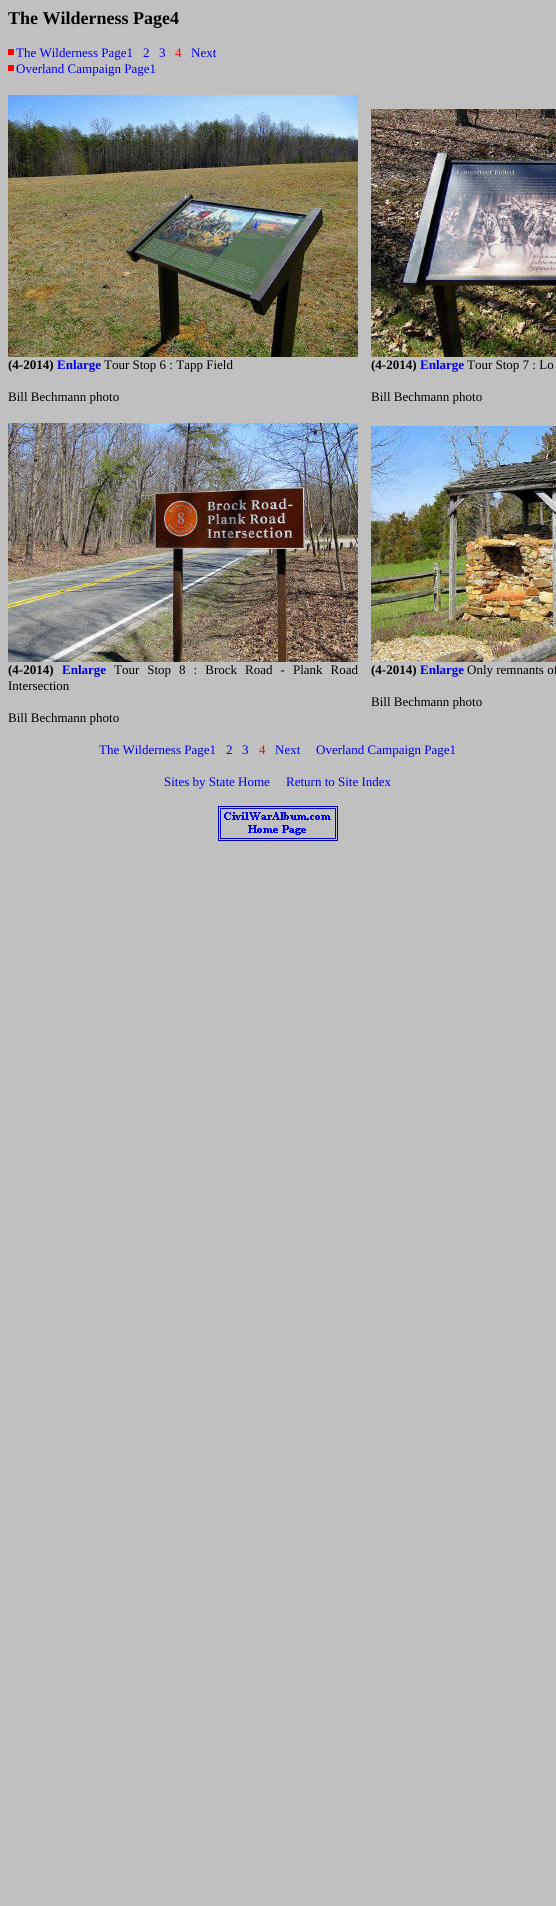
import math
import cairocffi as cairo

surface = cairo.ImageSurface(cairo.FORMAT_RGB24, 556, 1906)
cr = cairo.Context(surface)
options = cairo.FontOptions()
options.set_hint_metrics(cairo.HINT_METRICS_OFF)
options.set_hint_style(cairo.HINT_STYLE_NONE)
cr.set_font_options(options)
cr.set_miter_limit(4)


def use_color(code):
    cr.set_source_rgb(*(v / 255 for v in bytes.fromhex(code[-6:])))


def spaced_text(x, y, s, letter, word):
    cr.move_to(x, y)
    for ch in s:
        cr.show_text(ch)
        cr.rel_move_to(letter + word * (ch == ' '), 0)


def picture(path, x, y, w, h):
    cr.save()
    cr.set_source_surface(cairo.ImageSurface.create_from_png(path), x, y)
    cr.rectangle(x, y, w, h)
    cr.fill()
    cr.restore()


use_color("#c0c0c0")
cr.paint()
cr.select_font_face("Liberation Serif", cairo.FONT_SLANT_NORMAL, cairo.FONT_WEIGHT_BOLD)
cr.set_font_size(18)
use_color("#000000")
cr.move_to(8, 24)
cr.show_text("The Wilderness Page4")
picture("img1.png", 8, 48, 8, 9)
cr.select_font_face("Liberation Serif")
cr.set_font_size(13)
use_color("#0000ee")
cr.move_to(16, 57)
cr.show_text("The Wilderness Page1")
cr.move_to(143, 57)
cr.show_text("2")
cr.move_to(159, 57)
cr.show_text("3")
use_color("#ff0000")
cr.move_to(175, 57)
cr.show_text("4")
use_color("#0000ee")
cr.move_to(191, 57)
cr.show_text("Next")
picture("img1.png", 8, 64, 8, 9)
cr.move_to(16, 73)
cr.show_text("Overland Campaign Page1")
picture("img2.png", 8, 95, 350, 262)
picture("img3.png", 371, 109, 185, 248)
cr.select_font_face("Liberation Serif", cairo.FONT_SLANT_NORMAL, cairo.FONT_WEIGHT_BOLD)
use_color("#000000")
cr.move_to(8, 369)
cr.show_text("(4-2014)")
use_color("#0000ee")
cr.move_to(57, 369)
cr.show_text("Enlarge")
cr.select_font_face("Liberation Serif")
use_color("#000000")
cr.move_to(104, 369)
cr.show_text("Tour Stop 6 : Tapp Field")
cr.move_to(8, 401)
cr.show_text("Bill Bechmann photo")
cr.select_font_face("Liberation Serif", cairo.FONT_SLANT_NORMAL, cairo.FONT_WEIGHT_BOLD)
cr.move_to(371, 369)
cr.show_text("(4-2014)")
use_color("#0000ee")
cr.move_to(420, 369)
cr.show_text("Enlarge")
cr.select_font_face("Liberation Serif")
use_color("#000000")
cr.move_to(467, 369)
cr.show_text("Tour Stop 7 : Lo")
cr.move_to(371, 401)
cr.show_text("Bill Bechmann photo")
picture("img4.png", 8, 423, 350, 239)
picture("img5.png", 371, 426, 185, 236)
cr.select_font_face("Liberation Serif", cairo.FONT_SLANT_NORMAL, cairo.FONT_WEIGHT_BOLD)
cr.move_to(8, 674)
cr.show_text("(4-2014)")
use_color("#0000ee")
cr.move_to(62, 674)
cr.show_text("Enlarge")
cr.select_font_face("Liberation Serif")
use_color("#000000")
spaced_text(114, 674, "Tour Stop 8 : Brock Road -", 0, 4.75)
spaced_text(293, 674, "Plank Road", 0, 4.75)
cr.move_to(8, 690)
cr.show_text("Intersection")
cr.move_to(8, 722)
cr.show_text("Bill Bechmann photo")
cr.select_font_face("Liberation Serif", cairo.FONT_SLANT_NORMAL, cairo.FONT_WEIGHT_BOLD)
cr.move_to(371, 674)
cr.show_text("(4-2014)")
use_color("#0000ee")
cr.move_to(420, 674)
cr.show_text("Enlarge")
cr.select_font_face("Liberation Serif")
use_color("#000000")
cr.move_to(467, 674)
cr.show_text("Only remnants of")
cr.move_to(371, 706)
cr.show_text("Bill Bechmann photo")
use_color("#0000ee")
cr.move_to(99, 754)
cr.show_text("The Wilderness Page1")
cr.move_to(226, 754)
cr.show_text("2")
cr.move_to(242, 754)
cr.show_text("3")
use_color("#ff0000")
cr.move_to(259, 754)
cr.show_text("4")
use_color("#0000ee")
cr.move_to(275, 754)
cr.show_text("Next")
cr.move_to(316, 754)
cr.show_text("Overland Campaign Page1")
cr.move_to(164, 786)
cr.show_text("Sites by State Home")
cr.move_to(286, 786)
cr.show_text("Return to Site Index")
picture("img6.png", 218, 806, 120, 35)
surface.write_to_png("result.png")
